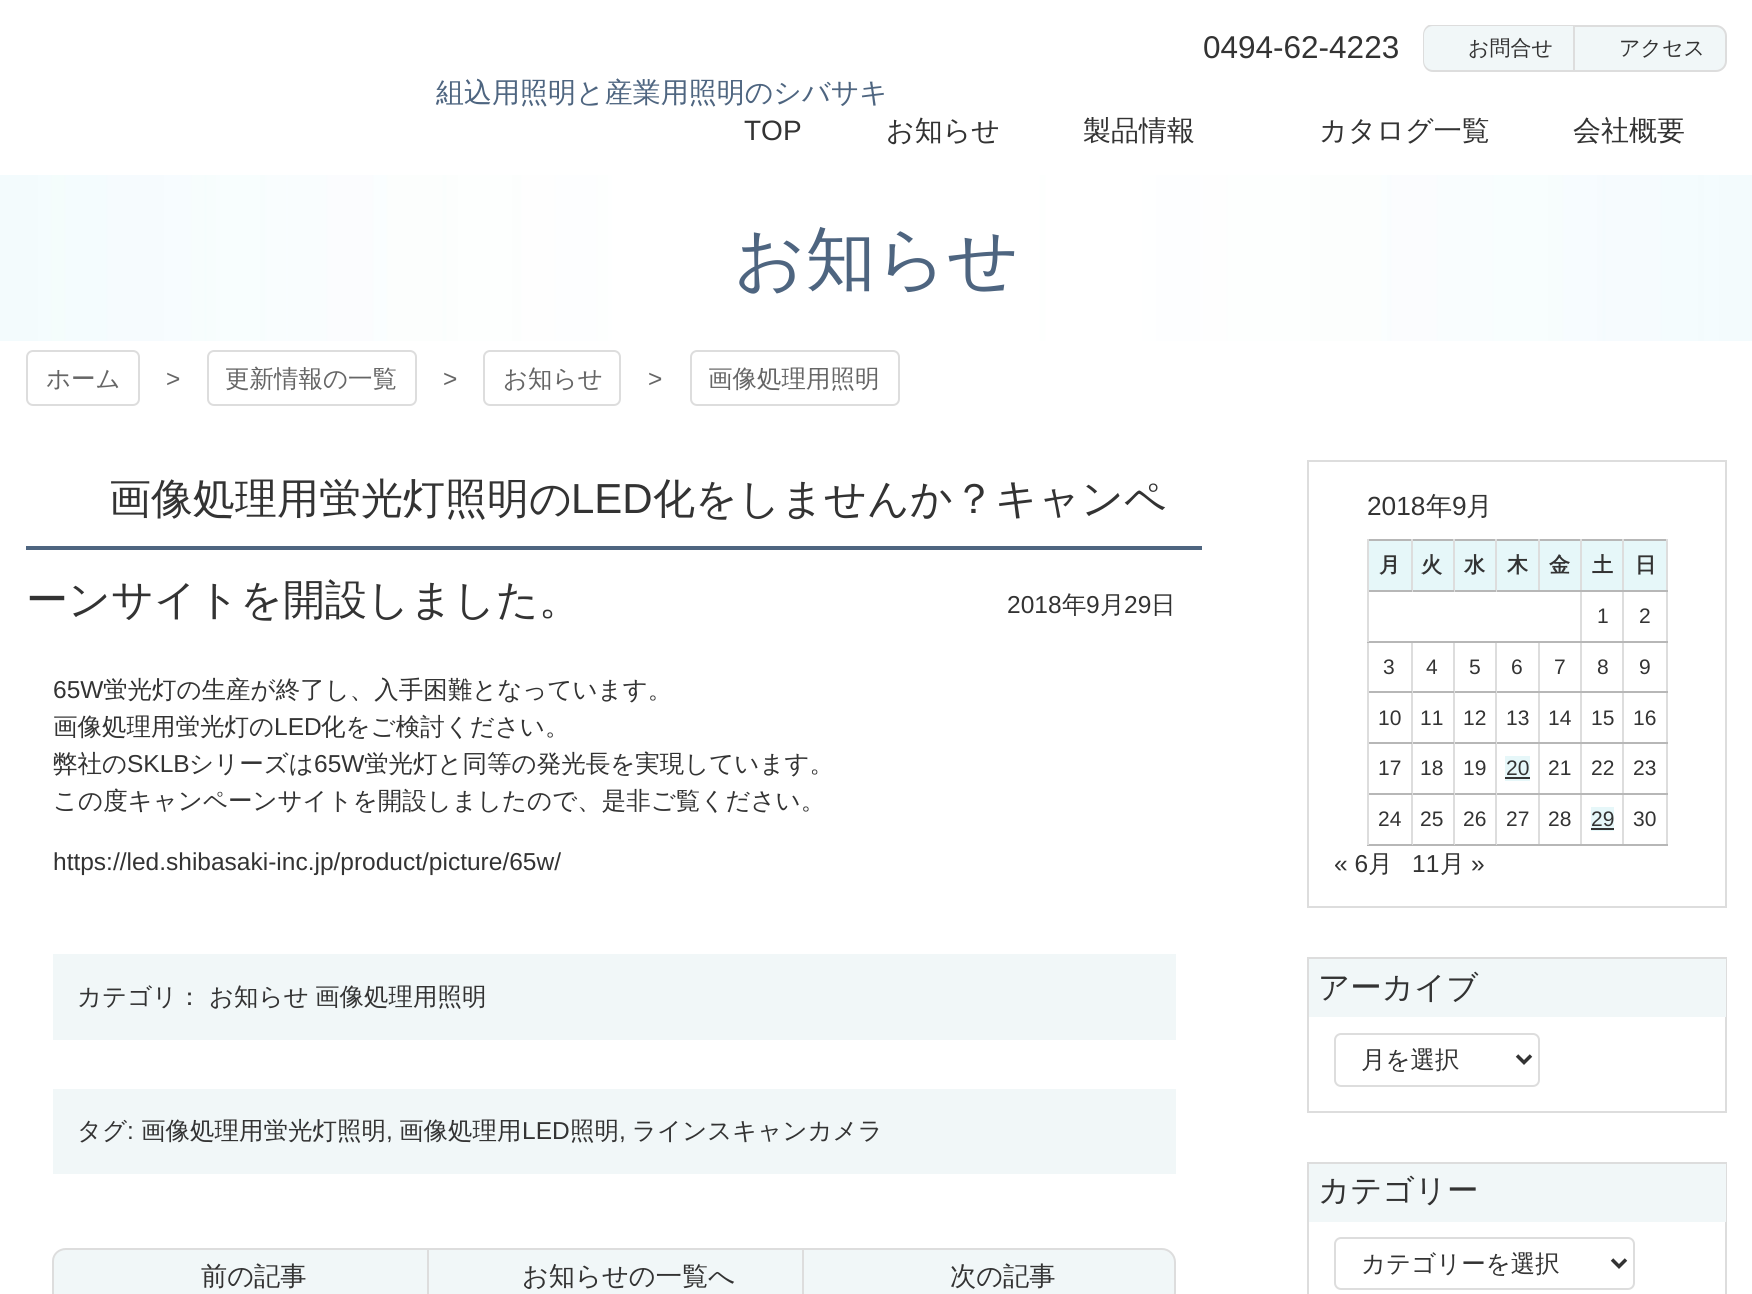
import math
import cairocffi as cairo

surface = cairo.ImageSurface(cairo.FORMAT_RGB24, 1752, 1294)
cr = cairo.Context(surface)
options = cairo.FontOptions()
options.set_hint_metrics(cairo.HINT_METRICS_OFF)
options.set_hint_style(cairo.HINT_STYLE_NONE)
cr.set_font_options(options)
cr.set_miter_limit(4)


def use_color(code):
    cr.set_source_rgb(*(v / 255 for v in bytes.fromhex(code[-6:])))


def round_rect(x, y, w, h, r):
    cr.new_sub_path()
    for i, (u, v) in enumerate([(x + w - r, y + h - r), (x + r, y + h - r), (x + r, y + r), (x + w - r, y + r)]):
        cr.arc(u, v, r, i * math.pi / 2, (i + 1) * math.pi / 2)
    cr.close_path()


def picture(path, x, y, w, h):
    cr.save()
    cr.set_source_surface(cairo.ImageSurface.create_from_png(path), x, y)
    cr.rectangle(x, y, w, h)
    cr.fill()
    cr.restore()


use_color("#ffffff")
cr.paint()
cr.select_font_face("Liberation Sans")
cr.set_font_size(31.5)
use_color("#333333")
cr.move_to(1203, 58)
cr.show_text("0494-62-4223")
use_color("#f1f7f8")
cr.new_path()
cr.move_to(1434, 25)
cr.line_to(1573, 25)
cr.line_to(1573, 72)
cr.line_to(1434, 72)
cr.curve_to(1428, 72, 1423, 67, 1423, 61)
cr.line_to(1423, 36)
cr.curve_to(1423, 30, 1428, 25, 1434, 25)
cr.close_path()
cr.fill()
cr.save()
cr.rectangle(1423, 25, 304, 47)
cr.clip()
use_color("#dddddd")
cr.set_fill_rule(cairo.FILL_RULE_EVEN_ODD)
cr.new_path()
cr.move_to(1433, 24)
cr.line_to(1573, 24)
cr.line_to(1573, 72)
cr.line_to(1433, 72)
cr.curve_to(1427, 72, 1423, 67, 1423, 61)
cr.line_to(1423, 35)
cr.curve_to(1423, 29, 1427, 24, 1433, 24)
cr.close_path()
cr.move_to(1433, 26)
cr.line_to(1573, 26)
cr.line_to(1573, 70)
cr.line_to(1433, 70)
cr.curve_to(1428, 70, 1424, 66, 1424, 61)
cr.line_to(1424, 35)
cr.curve_to(1424, 30, 1428, 26, 1433, 26)
cr.close_path()
cr.fill()
cr.restore()
cr.select_font_face("WenQuanYi Zen Hei Medium")
cr.set_font_size(21)
use_color("#333333")
cr.move_to(1468, 55)
cr.show_text("お問合せ")
use_color("#f1f7f8")
cr.new_path()
cr.move_to(1574, 26)
cr.line_to(1716, 26)
cr.curve_to(1721.5, 26, 1726, 30.5, 1726, 36)
cr.line_to(1726, 61)
cr.curve_to(1726, 66.5, 1721.5, 71, 1716, 71)
cr.line_to(1574, 71)
cr.close_path()
cr.fill_preserve()
use_color("#dddddd")
cr.stroke()
use_color("#333333")
cr.move_to(1619, 55)
cr.show_text("アクセス")
cr.set_font_size(28)
use_color("#4e6580")
cr.move_to(436, 102)
cr.show_text("組込用照明と産業用照明のシバサキ")
cr.select_font_face("Liberation Sans")
use_color("#333333")
cr.move_to(744, 140)
cr.show_text("TOP")
cr.select_font_face("WenQuanYi Zen Hei Medium")
cr.move_to(886, 140)
cr.show_text("お知らせ")
cr.move_to(1083, 140)
cr.show_text("製品情報")
cr.move_to(1319, 140)
cr.show_text("カタログ一覧")
cr.move_to(1573, 140)
cr.show_text("会社概要")
picture("img1.png", 0, 175, 1752, 166)
cr.set_font_size(70)
use_color("#4e6580")
cr.move_to(734, 283)
cr.show_text("お知らせ")
round_rect(27, 351, 112, 54, 6)
use_color("#dddddd")
cr.stroke()
cr.set_font_size(24.5)
use_color("#666666")
cr.move_to(46, 387)
cr.show_text("ホーム")
cr.select_font_face("Liberation Sans")
cr.move_to(166, 387)
cr.show_text(">")
round_rect(208, 351, 208, 54, 6)
use_color("#dddddd")
cr.stroke()
cr.select_font_face("WenQuanYi Zen Hei Medium")
use_color("#666666")
cr.move_to(225, 387)
cr.show_text("更新情報の一覧")
cr.select_font_face("Liberation Sans")
cr.move_to(443, 387)
cr.show_text(">")
round_rect(484, 351, 136, 54, 6)
use_color("#dddddd")
cr.stroke()
cr.select_font_face("WenQuanYi Zen Hei Medium")
use_color("#666666")
cr.move_to(503, 387)
cr.show_text("お知らせ")
cr.select_font_face("Liberation Sans")
cr.move_to(648, 387)
cr.show_text(">")
round_rect(691, 351, 208, 54, 6)
use_color("#dddddd")
cr.stroke()
cr.select_font_face("WenQuanYi Zen Hei Medium")
use_color("#666666")
cr.move_to(708, 387)
cr.show_text("画像処理用照明")
use_color("#4e6580")
cr.rectangle(26, 546, 1176, 4)
cr.fill()
cr.set_font_size(42)
use_color("#333333")
cr.move_to(109, 513)
cr.show_text("画像処理用蛍光灯照明の")
cr.select_font_face("Liberation Sans")
cr.move_to(571, 513)
cr.show_text("LED")
cr.select_font_face("WenQuanYi Zen Hei Medium")
cr.move_to(653, 513)
cr.show_text("化をしませんか？キャンペ")
cr.move_to(26, 614)
cr.show_text("ーンサイトを開設しました。")
cr.select_font_face("Liberation Sans")
cr.set_font_size(24.5)
cr.move_to(1007, 613)
cr.show_text("2018")
cr.select_font_face("WenQuanYi Zen Hei Medium")
cr.move_to(1062, 613)
cr.show_text("年")
cr.select_font_face("Liberation Sans")
cr.move_to(1086, 613)
cr.show_text("9")
cr.select_font_face("WenQuanYi Zen Hei Medium")
cr.move_to(1100, 613)
cr.show_text("月")
cr.select_font_face("Liberation Sans")
cr.move_to(1124, 613)
cr.show_text("29")
cr.select_font_face("WenQuanYi Zen Hei Medium")
cr.move_to(1151, 613)
cr.show_text("日")
cr.select_font_face("Liberation Sans")
cr.move_to(53, 698)
cr.show_text("65W")
cr.select_font_face("WenQuanYi Zen Hei Medium")
cr.move_to(103, 698)
cr.show_text("蛍光灯の生産が終了し、入手困難となっています。")
cr.move_to(53, 735)
cr.show_text("画像処理用蛍光灯の")
cr.select_font_face("Liberation Sans")
cr.move_to(274, 735)
cr.show_text("LED")
cr.select_font_face("WenQuanYi Zen Hei Medium")
cr.move_to(321, 735)
cr.show_text("化をご検討ください。")
cr.move_to(53, 772)
cr.show_text("弊社の")
cr.select_font_face("Liberation Sans")
cr.move_to(127, 772)
cr.show_text("SKLB")
cr.select_font_face("WenQuanYi Zen Hei Medium")
cr.move_to(189, 772)
cr.show_text("シリーズは")
cr.select_font_face("Liberation Sans")
cr.move_to(314, 772)
cr.show_text("65W")
cr.select_font_face("WenQuanYi Zen Hei Medium")
cr.move_to(364, 772)
cr.show_text("蛍光灯と同等の発光長を実現しています。")
cr.move_to(53, 809)
cr.show_text("この度キャンペーンサイトを開設しましたので、是非ご覧ください。")
cr.select_font_face("Liberation Sans")
cr.move_to(53, 870)
cr.show_text("https://led.shibasaki-inc.jp/product/picture/65w/")
use_color("#f1f7f8")
cr.rectangle(53, 954, 1123, 86)
cr.fill()
cr.select_font_face("WenQuanYi Zen Hei Medium")
use_color("#333333")
cr.move_to(77, 1005)
cr.show_text("カテゴリ：")
cr.move_to(209, 1005)
cr.show_text("お知らせ")
cr.move_to(315, 1005)
cr.show_text("画像処理用照明")
use_color("#f1f7f8")
cr.rectangle(53, 1089, 1123, 85)
cr.fill()
use_color("#333333")
cr.move_to(77, 1139)
cr.show_text("タグ")
cr.select_font_face("Liberation Sans")
cr.move_to(127, 1139)
cr.show_text(":")
cr.select_font_face("WenQuanYi Zen Hei Medium")
cr.move_to(141, 1139)
cr.show_text("画像処理用蛍光灯照明")
cr.select_font_face("Liberation Sans")
cr.move_to(386, 1139)
cr.show_text(",")
cr.select_font_face("WenQuanYi Zen Hei Medium")
cr.move_to(399, 1139)
cr.show_text("画像処理用")
cr.select_font_face("Liberation Sans")
cr.move_to(522, 1139)
cr.show_text("LED")
cr.select_font_face("WenQuanYi Zen Hei Medium")
cr.move_to(570, 1139)
cr.show_text("照明")
cr.select_font_face("Liberation Sans")
cr.move_to(619, 1139)
cr.show_text(",")
cr.select_font_face("WenQuanYi Zen Hei Medium")
cr.move_to(632, 1139)
cr.show_text("ラインスキャンカメラ")
use_color("#f1f7f8")
cr.new_path()
cr.move_to(67, 1248)
cr.line_to(427, 1248)
cr.line_to(427, 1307)
cr.line_to(67, 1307)
cr.curve_to(59.5, 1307, 53, 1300.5, 53, 1293)
cr.line_to(53, 1262)
cr.curve_to(53, 1254.5, 59.5, 1248, 67, 1248)
cr.close_path()
cr.fill()
use_color("#dddddd")
cr.set_fill_rule(cairo.FILL_RULE_EVEN_ODD)
cr.new_path()
cr.move_to(66, 1248)
cr.line_to(427, 1248)
cr.line_to(427, 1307)
cr.line_to(66, 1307)
cr.curve_to(58, 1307, 52, 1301, 52, 1294)
cr.line_to(52, 1261)
cr.curve_to(52, 1254, 58, 1248, 66, 1248)
cr.close_path()
cr.move_to(66, 1250)
cr.line_to(427, 1250)
cr.line_to(427, 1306)
cr.line_to(66, 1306)
cr.curve_to(59, 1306, 54, 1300, 54, 1294)
cr.line_to(54, 1261)
cr.curve_to(54, 1255, 59, 1250, 66, 1250)
cr.close_path()
cr.fill()
cr.set_font_size(26.25)
use_color("#333333")
cr.move_to(201, 1285)
cr.show_text("前の記事")
use_color("#f1f7f8")
cr.rectangle(429, 1250, 373, 44)
cr.fill()
use_color("#dddddd")
cr.rectangle(427, 1248, 375, 2)
cr.fill()
cr.rectangle(427, 1248, 2, 46)
cr.fill()
use_color("#333333")
cr.move_to(522, 1285)
cr.show_text("お知らせの一覧へ")
use_color("#f1f7f8")
cr.new_path()
cr.move_to(803, 1249)
cr.line_to(1162, 1249)
cr.curve_to(1169, 1249, 1175, 1255, 1175, 1262)
cr.line_to(1175, 1293)
cr.curve_to(1175, 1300, 1169, 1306, 1162, 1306)
cr.line_to(803, 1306)
cr.close_path()
cr.fill_preserve()
use_color("#dddddd")
cr.stroke()
use_color("#333333")
cr.move_to(950, 1285)
cr.show_text("次の記事")
cr.rectangle(1308, 461, 418, 446)
use_color("#dddddd")
cr.stroke()
cr.select_font_face("Liberation Sans")
use_color("#333333")
cr.move_to(1367, 515)
cr.show_text("2018")
cr.select_font_face("WenQuanYi Zen Hei Medium")
cr.move_to(1426, 515)
cr.show_text("年")
cr.select_font_face("Liberation Sans")
cr.move_to(1452, 515)
cr.show_text("9")
cr.select_font_face("WenQuanYi Zen Hei Medium")
cr.move_to(1466, 515)
cr.show_text("月")
use_color("#e6f7f9")
cr.rectangle(1369, 541, 42, 49)
cr.fill()
use_color("#b7b7b7")
cr.rectangle(1367, 539, 301, 2)
cr.fill()
use_color("#dddddd")
cr.rectangle(1666, 590, 2, 255)
cr.fill()
cr.rectangle(1666, 539, 2, 53)
cr.fill()
use_color("#b7b7b7")
cr.rectangle(1622, 844, 46, 2)
cr.fill()
use_color("#dddddd")
cr.rectangle(1622, 793, 2, 52)
cr.fill()
use_color("#b7b7b7")
cr.rectangle(1622, 793, 46, 2)
cr.fill()
use_color("#dddddd")
cr.rectangle(1622, 742, 2, 53)
cr.fill()
use_color("#b7b7b7")
cr.rectangle(1622, 742, 46, 2)
cr.fill()
use_color("#dddddd")
cr.rectangle(1622, 691, 2, 53)
cr.fill()
use_color("#b7b7b7")
cr.rectangle(1622, 691, 46, 2)
cr.fill()
use_color("#dddddd")
cr.rectangle(1622, 641, 2, 52)
cr.fill()
use_color("#b7b7b7")
cr.rectangle(1622, 641, 46, 2)
cr.fill()
use_color("#dddddd")
cr.rectangle(1622, 590, 2, 52)
cr.fill()
use_color("#b7b7b7")
cr.rectangle(1622, 590, 46, 2)
cr.fill()
use_color("#dddddd")
cr.rectangle(1622, 539, 2, 53)
cr.fill()
use_color("#b7b7b7")
cr.rectangle(1580, 844, 44, 2)
cr.fill()
use_color("#dddddd")
cr.rectangle(1580, 793, 2, 52)
cr.fill()
use_color("#b7b7b7")
cr.rectangle(1580, 793, 44, 2)
cr.fill()
use_color("#dddddd")
cr.rectangle(1580, 742, 2, 53)
cr.fill()
use_color("#b7b7b7")
cr.rectangle(1580, 742, 44, 2)
cr.fill()
use_color("#dddddd")
cr.rectangle(1580, 691, 2, 53)
cr.fill()
use_color("#b7b7b7")
cr.rectangle(1580, 691, 44, 2)
cr.fill()
use_color("#dddddd")
cr.rectangle(1580, 641, 2, 52)
cr.fill()
use_color("#b7b7b7")
cr.rectangle(1580, 641, 44, 2)
cr.fill()
use_color("#dddddd")
cr.rectangle(1580, 590, 2, 52)
cr.fill()
use_color("#b7b7b7")
cr.rectangle(1580, 590, 44, 2)
cr.fill()
use_color("#dddddd")
cr.rectangle(1580, 539, 2, 53)
cr.fill()
use_color("#b7b7b7")
cr.rectangle(1538, 590, 44, 2)
cr.fill()
use_color("#dddddd")
cr.rectangle(1538, 539, 2, 53)
cr.fill()
use_color("#b7b7b7")
cr.rectangle(1495, 590, 45, 2)
cr.fill()
use_color("#dddddd")
cr.rectangle(1495, 539, 2, 53)
cr.fill()
use_color("#b7b7b7")
cr.rectangle(1453, 590, 43, 2)
cr.fill()
use_color("#dddddd")
cr.rectangle(1453, 539, 2, 53)
cr.fill()
use_color("#b7b7b7")
cr.rectangle(1411, 590, 43, 2)
cr.fill()
use_color("#dddddd")
cr.rectangle(1411, 539, 2, 53)
cr.fill()
use_color("#b7b7b7")
cr.rectangle(1538, 844, 44, 2)
cr.fill()
use_color("#dddddd")
cr.rectangle(1538, 793, 2, 52)
cr.fill()
use_color("#b7b7b7")
cr.rectangle(1538, 793, 44, 2)
cr.fill()
use_color("#dddddd")
cr.rectangle(1538, 742, 2, 53)
cr.fill()
use_color("#b7b7b7")
cr.rectangle(1538, 742, 44, 2)
cr.fill()
use_color("#dddddd")
cr.rectangle(1538, 691, 2, 53)
cr.fill()
use_color("#b7b7b7")
cr.rectangle(1538, 691, 44, 2)
cr.fill()
use_color("#dddddd")
cr.rectangle(1538, 641, 2, 52)
cr.fill()
use_color("#b7b7b7")
cr.rectangle(1495, 844, 45, 2)
cr.fill()
use_color("#dddddd")
cr.rectangle(1495, 793, 2, 52)
cr.fill()
use_color("#b7b7b7")
cr.rectangle(1495, 793, 45, 2)
cr.fill()
use_color("#dddddd")
cr.rectangle(1495, 742, 2, 53)
cr.fill()
use_color("#b7b7b7")
cr.rectangle(1495, 742, 45, 2)
cr.fill()
use_color("#dddddd")
cr.rectangle(1495, 691, 2, 53)
cr.fill()
use_color("#b7b7b7")
cr.rectangle(1495, 691, 45, 2)
cr.fill()
use_color("#dddddd")
cr.rectangle(1495, 641, 2, 52)
cr.fill()
use_color("#b7b7b7")
cr.rectangle(1453, 844, 43, 2)
cr.fill()
use_color("#dddddd")
cr.rectangle(1453, 793, 2, 52)
cr.fill()
use_color("#b7b7b7")
cr.rectangle(1453, 793, 43, 2)
cr.fill()
use_color("#dddddd")
cr.rectangle(1453, 742, 2, 53)
cr.fill()
use_color("#b7b7b7")
cr.rectangle(1453, 742, 43, 2)
cr.fill()
use_color("#dddddd")
cr.rectangle(1453, 691, 2, 53)
cr.fill()
use_color("#b7b7b7")
cr.rectangle(1453, 691, 43, 2)
cr.fill()
use_color("#dddddd")
cr.rectangle(1453, 641, 2, 52)
cr.fill()
use_color("#b7b7b7")
cr.rectangle(1411, 844, 43, 2)
cr.fill()
use_color("#dddddd")
cr.rectangle(1411, 793, 2, 52)
cr.fill()
use_color("#b7b7b7")
cr.rectangle(1411, 793, 43, 2)
cr.fill()
use_color("#dddddd")
cr.rectangle(1411, 742, 2, 53)
cr.fill()
use_color("#b7b7b7")
cr.rectangle(1411, 742, 43, 2)
cr.fill()
use_color("#dddddd")
cr.rectangle(1411, 691, 2, 53)
cr.fill()
use_color("#b7b7b7")
cr.rectangle(1411, 691, 43, 2)
cr.fill()
use_color("#dddddd")
cr.rectangle(1411, 641, 2, 52)
cr.fill()
use_color("#b7b7b7")
cr.rectangle(1367, 844, 45, 2)
cr.fill()
use_color("#dddddd")
cr.rectangle(1367, 793, 2, 52)
cr.fill()
use_color("#b7b7b7")
cr.rectangle(1367, 793, 45, 2)
cr.fill()
use_color("#dddddd")
cr.rectangle(1367, 742, 2, 53)
cr.fill()
use_color("#b7b7b7")
cr.rectangle(1367, 742, 45, 2)
cr.fill()
use_color("#dddddd")
cr.rectangle(1367, 691, 2, 53)
cr.fill()
use_color("#b7b7b7")
cr.rectangle(1367, 691, 45, 2)
cr.fill()
use_color("#dddddd")
cr.rectangle(1367, 641, 2, 52)
cr.fill()
use_color("#b7b7b7")
cr.rectangle(1367, 641, 215, 2)
cr.fill()
use_color("#dddddd")
cr.rectangle(1367, 590, 2, 52)
cr.fill()
use_color("#b7b7b7")
cr.rectangle(1367, 590, 45, 2)
cr.fill()
use_color("#dddddd")
cr.rectangle(1367, 539, 2, 53)
cr.fill()
cr.select_font_face("WenQuanYi Zen Hei", cairo.FONT_SLANT_NORMAL, cairo.FONT_WEIGHT_BOLD)
cr.set_font_size(21)
use_color("#333333")
cr.move_to(1379, 572)
cr.show_text("月")
use_color("#e6f7f9")
cr.rectangle(1413, 541, 40, 49)
cr.fill()
use_color("#333333")
cr.move_to(1421, 572)
cr.show_text("火")
use_color("#e6f7f9")
cr.rectangle(1455, 541, 40, 49)
cr.fill()
use_color("#333333")
cr.move_to(1464, 572)
cr.show_text("水")
use_color("#e6f7f9")
cr.rectangle(1497, 541, 41, 49)
cr.fill()
use_color("#333333")
cr.move_to(1507, 572)
cr.show_text("木")
use_color("#e6f7f9")
cr.rectangle(1540, 541, 40, 49)
cr.fill()
use_color("#333333")
cr.move_to(1549, 572)
cr.show_text("金")
use_color("#e6f7f9")
cr.rectangle(1582, 541, 40, 49)
cr.fill()
use_color("#333333")
cr.move_to(1592, 572)
cr.show_text("土")
use_color("#e6f7f9")
cr.rectangle(1624, 541, 42, 49)
cr.fill()
use_color("#333333")
cr.move_to(1635, 572)
cr.show_text("日")
cr.select_font_face("Liberation Sans")
cr.move_to(1597, 623)
cr.show_text("1")
cr.move_to(1639, 623)
cr.show_text("2")
cr.move_to(1383, 674)
cr.show_text("3")
cr.move_to(1426, 674)
cr.show_text("4")
cr.move_to(1469, 674)
cr.show_text("5")
cr.move_to(1511, 674)
cr.show_text("6")
cr.move_to(1554, 674)
cr.show_text("7")
cr.move_to(1597, 674)
cr.show_text("8")
cr.move_to(1639, 674)
cr.show_text("9")
cr.move_to(1378, 725)
cr.show_text("10")
cr.move_to(1420, 725)
cr.show_text("11")
cr.move_to(1463, 725)
cr.show_text("12")
cr.move_to(1506, 725)
cr.show_text("13")
cr.move_to(1548, 725)
cr.show_text("14")
cr.move_to(1591, 725)
cr.show_text("15")
cr.move_to(1633, 725)
cr.show_text("16")
cr.move_to(1378, 775)
cr.show_text("17")
cr.move_to(1420, 775)
cr.show_text("18")
cr.move_to(1463, 775)
cr.show_text("19")
use_color("#e6f7f9")
cr.rectangle(1505, 756, 25, 25)
cr.fill()
use_color("#333333")
cr.move_to(1506, 775)
cr.show_text("20")
cr.rectangle(1505, 777, 25, 2)
cr.fill()
cr.move_to(1548, 775)
cr.show_text("21")
cr.move_to(1591, 775)
cr.show_text("22")
cr.move_to(1633, 775)
cr.show_text("23")
cr.move_to(1378, 826)
cr.show_text("24")
cr.move_to(1420, 826)
cr.show_text("25")
cr.move_to(1463, 826)
cr.show_text("26")
cr.move_to(1506, 826)
cr.show_text("27")
cr.move_to(1548, 826)
cr.show_text("28")
use_color("#e6f7f9")
cr.rectangle(1591, 807, 23, 24)
cr.fill()
use_color("#333333")
cr.move_to(1591, 826)
cr.show_text("29")
cr.rectangle(1591, 828, 23, 2)
cr.fill()
cr.move_to(1633, 826)
cr.show_text("30")
cr.set_font_size(24.5)
cr.move_to(1334, 872)
cr.show_text("« 6")
cr.select_font_face("WenQuanYi Zen Hei Medium")
cr.move_to(1368, 872)
cr.show_text("月")
cr.select_font_face("Liberation Sans")
cr.move_to(1412, 872)
cr.show_text("11")
cr.select_font_face("WenQuanYi Zen Hei Medium")
cr.move_to(1440, 872)
cr.show_text("月")
cr.select_font_face("Liberation Sans")
cr.move_to(1471, 872)
cr.show_text("»")
cr.rectangle(1308, 958, 418, 154)
use_color("#dddddd")
cr.stroke()
use_color("#f1f7f8")
cr.rectangle(1309, 959, 417, 58)
cr.fill()
cr.select_font_face("WenQuanYi Zen Hei Medium")
cr.set_font_size(31.5)
use_color("#333333")
cr.move_to(1318, 998)
cr.show_text("アーカイブ")
round_rect(1335, 1034, 204, 52, 6)
use_color("#dddddd")
cr.stroke()
cr.new_path()
cr.move_to(1517, 1055.5)
cr.line_to(1524, 1062.5)
cr.line_to(1531, 1055.5)
use_color("#333333")
cr.set_line_width(3.5)
cr.stroke()
cr.set_font_size(24.5)
cr.move_to(1361, 1068)
cr.show_text("月を選択")
cr.rectangle(1308, 1163, 418, 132)
use_color("#dddddd")
cr.set_line_width(2)
cr.stroke()
use_color("#f1f7f8")
cr.rectangle(1309, 1164, 417, 58)
cr.fill()
cr.set_font_size(31.5)
use_color("#333333")
cr.move_to(1318, 1201)
cr.show_text("カテゴリー")
round_rect(1335, 1238, 299, 51, 6)
use_color("#dddddd")
cr.stroke()
cr.new_path()
cr.move_to(1612, 1259.5)
cr.line_to(1619, 1266.5)
cr.line_to(1626, 1259.5)
use_color("#333333")
cr.set_line_width(3.5)
cr.stroke()
cr.set_font_size(24.5)
cr.move_to(1361, 1272)
cr.show_text("カテゴリーを選択")
surface.write_to_png("result.png")
